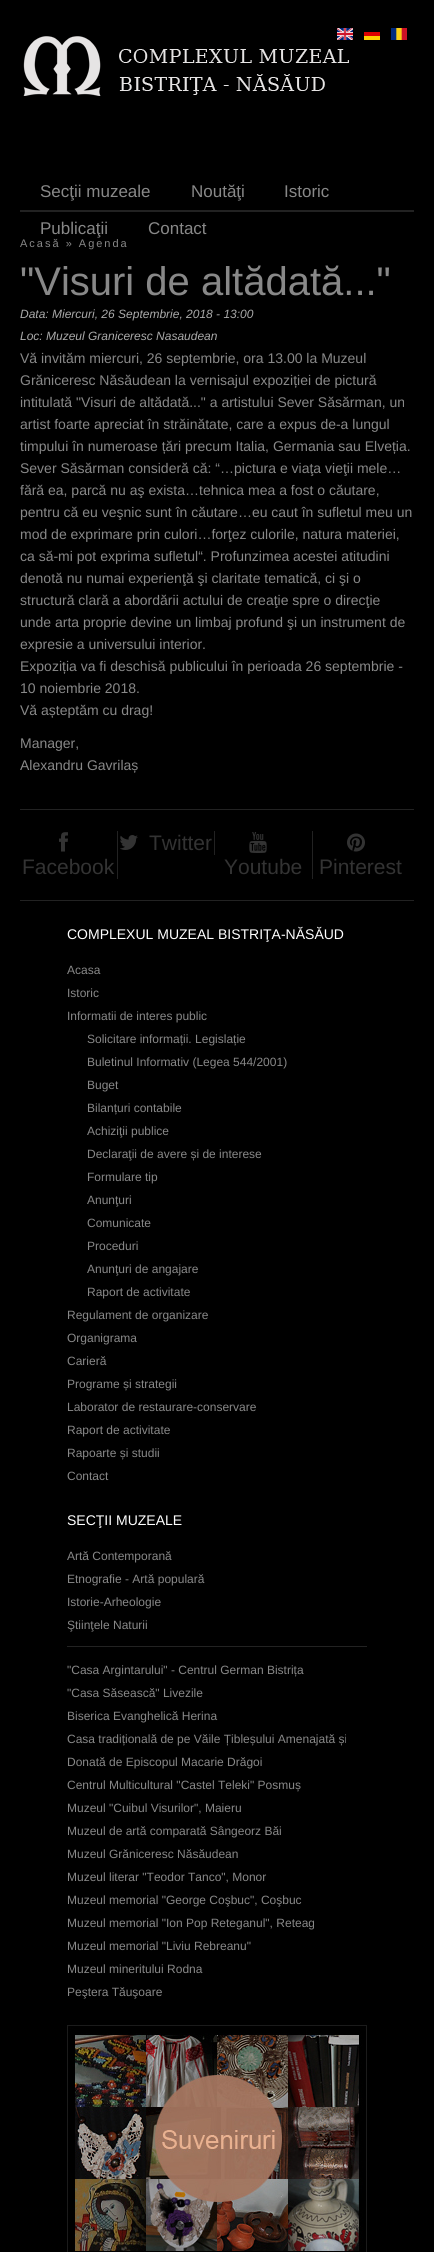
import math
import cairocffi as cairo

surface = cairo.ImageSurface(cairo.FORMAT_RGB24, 434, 2252)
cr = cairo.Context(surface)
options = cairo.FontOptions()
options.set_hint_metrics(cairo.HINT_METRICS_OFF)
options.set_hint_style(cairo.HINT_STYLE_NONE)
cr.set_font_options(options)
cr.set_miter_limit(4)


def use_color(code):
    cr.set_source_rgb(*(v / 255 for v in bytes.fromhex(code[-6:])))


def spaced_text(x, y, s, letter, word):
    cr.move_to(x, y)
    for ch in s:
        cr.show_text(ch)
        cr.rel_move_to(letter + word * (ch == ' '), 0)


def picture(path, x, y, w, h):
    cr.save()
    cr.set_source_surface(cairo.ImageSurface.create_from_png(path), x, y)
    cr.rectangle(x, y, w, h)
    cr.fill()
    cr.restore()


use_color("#000000")
cr.paint()
use_color("#222222")
cr.rectangle(20, 210, 394, 2)
cr.fill()
picture("img4.png", 23, 36, 326, 60)
picture("img1.png", 337, 28, 16, 12)
picture("img2.png", 364, 32, 16, 8)
picture("img3.png", 391, 28, 16, 12)
cr.select_font_face("Liberation Sans")
cr.set_font_size(17)
use_color("#888888")
cr.move_to(40, 197)
cr.show_text("Secţii muzeale")
cr.move_to(191, 197)
cr.show_text("Noutăţi")
cr.move_to(284, 197)
cr.show_text("Istoric")
cr.move_to(40, 234)
cr.show_text("Publicaţii")
cr.move_to(148, 234)
cr.show_text("Contact")
cr.set_font_size(11)
spaced_text(20, 247, "Acasă » Agenda", 2, 0)
cr.set_font_size(40)
cr.move_to(20, 295)
cr.show_text("\"Visuri de altădată...\"")
cr.select_font_face("Liberation Sans", cairo.FONT_SLANT_ITALIC)
cr.set_font_size(12)
use_color("#aaaaaa")
cr.move_to(20, 318)
cr.show_text("Data: Miercuri, 26 Septembrie, 2018 - 13:00")
cr.move_to(20, 340)
cr.show_text("Loc: Muzeul Graniceresc Nasaudean")
cr.select_font_face("Liberation Sans")
cr.set_font_size(14)
use_color("#888888")
cr.move_to(20, 363)
cr.show_text("Vă invităm miercuri, 26 septembrie, ora 13.00 la Muzeul")
cr.move_to(20, 385)
cr.show_text("Grăniceresc Năsăudean la vernisajul expoziției de pictură")
cr.move_to(20, 407)
cr.show_text("intitulată \"Visuri de altădată...\" a artistului Sever Săsărman, un")
cr.move_to(20, 429)
cr.show_text("artist foarte apreciat în străinătate, care a expus de-a lungul")
cr.move_to(20, 451)
cr.show_text("timpului în numeroase țări precum Italia, Germania sau Elveția.")
cr.move_to(20, 473)
cr.show_text("Sever Săsărman consideră că: “…pictura e viaţa vieţii mele…")
cr.move_to(20, 495)
cr.show_text("fără ea, parcă nu aş exista…tehnica mea a fost o căutare,")
cr.move_to(20, 517)
cr.show_text("pentru că eu veşnic sunt în căutare…eu caut în sufletul meu un")
cr.move_to(20, 539)
cr.show_text("mod de exprimare prin culori…forţez culorile, natura materiei,")
cr.move_to(20, 561)
cr.show_text("ca să-mi pot exprima sufletul“. Profunzimea acestei atitudini")
cr.move_to(20, 583)
cr.show_text("denotă nu numai experienţă şi claritate tematică, ci şi o")
cr.move_to(20, 605)
cr.show_text("structură clară a abordării actului de creaţie spre o direcţie")
cr.move_to(20, 627)
cr.show_text("unde arta proprie devine un limbaj profund şi un instrument de")
cr.move_to(20, 649)
cr.show_text("expresie a universului interior.")
cr.move_to(20, 671)
cr.show_text("Expoziția va fi deschisă publicului în perioada 26 septembrie -")
cr.move_to(20, 693)
cr.show_text("10 noiembrie 2018.")
cr.move_to(20, 715)
cr.show_text("Vă așteptăm cu drag!")
cr.move_to(20, 748)
cr.show_text("Manager,")
cr.move_to(20, 770)
cr.show_text("Alexandru Gavrilaș")
use_color("#222222")
cr.rectangle(20, 809, 394, 1)
cr.fill()
cr.rectangle(20, 900, 394, 1)
cr.fill()
cr.rectangle(214, 831, 1, 24)
cr.fill()
picture("img5.png", 120, 835, 18, 15)
cr.set_font_size(21)
use_color("#333333")
cr.move_to(149, 850)
cr.show_text("Twitter")
use_color("#222222")
cr.rectangle(117, 831, 1, 48)
cr.fill()
picture("img6.png", 59, 832, 9, 20)
use_color("#333333")
cr.move_to(22, 874)
cr.show_text("Facebook")
use_color("#222222")
cr.rectangle(312, 831, 1, 48)
cr.fill()
picture("img7.png", 249, 832, 18, 21)
use_color("#333333")
cr.move_to(224, 874)
cr.show_text("Youtube")
picture("img8.png", 347, 833, 18, 19)
cr.move_to(319, 874)
cr.show_text("Pinterest")
cr.set_font_size(14)
use_color("#ffffff")
cr.move_to(67, 939)
cr.show_text("COMPLEXUL MUZEAL BISTRIŢA-NĂSĂUD")
cr.set_font_size(12)
use_color("#888888")
cr.move_to(67, 974)
cr.show_text("Acasa")
cr.move_to(67, 997)
cr.show_text("Istoric")
cr.move_to(67, 1020)
cr.show_text("Informatii de interes public")
cr.move_to(87, 1043)
cr.show_text("Solicitare informații. Legislație")
cr.move_to(87, 1066)
cr.show_text("Buletinul Informativ (Legea 544/2001)")
cr.move_to(87, 1089)
cr.show_text("Buget")
cr.move_to(87, 1112)
cr.show_text("Bilanțuri contabile")
cr.move_to(87, 1135)
cr.show_text("Achiziţii publice")
cr.move_to(87, 1158)
cr.show_text("Declaraţii de avere și de interese")
cr.move_to(87, 1181)
cr.show_text("Formulare tip")
cr.move_to(87, 1204)
cr.show_text("Anunţuri")
cr.move_to(87, 1227)
cr.show_text("Comunicate")
cr.move_to(87, 1250)
cr.show_text("Proceduri")
cr.move_to(87, 1273)
cr.show_text("Anunţuri de angajare")
cr.move_to(87, 1296)
cr.show_text("Raport de activitate")
cr.move_to(67, 1319)
cr.show_text("Regulament de organizare")
cr.move_to(67, 1342)
cr.show_text("Organigrama")
cr.move_to(67, 1365)
cr.show_text("Carieră")
cr.move_to(67, 1388)
cr.show_text("Programe și strategii")
cr.move_to(67, 1411)
cr.show_text("Laborator de restaurare-conservare")
cr.move_to(67, 1434)
cr.show_text("Raport de activitate")
cr.move_to(67, 1457)
cr.show_text("Rapoarte și studii")
cr.move_to(67, 1480)
cr.show_text("Contact")
cr.set_font_size(14)
use_color("#ffffff")
cr.move_to(67, 1525)
cr.show_text("SECŢII MUZEALE")
cr.set_font_size(12)
use_color("#888888")
cr.move_to(67, 1560)
cr.show_text("Artă Contemporană")
cr.move_to(67, 1583)
cr.show_text("Etnografie - Artă populară")
cr.move_to(67, 1606)
cr.show_text("Istorie-Arheologie")
use_color("#222222")
cr.rectangle(67, 1646, 300, 1)
cr.fill()
use_color("#888888")
cr.move_to(67, 1629)
cr.show_text("Ştiinţele Naturii")
cr.move_to(67, 1674)
cr.show_text("\"Casa Argintarului\" - Centrul German Bistrița")
cr.move_to(67, 1697)
cr.show_text("\"Casa Săsească\" Livezile")
cr.move_to(67, 1720)
cr.show_text("Biserica Evanghelică Herina")
cr.move_to(67, 1743)
cr.show_text("Casa tradițională de pe Văile Țibleșului Amenajată și")
cr.move_to(67, 1766)
cr.show_text("Donată de Episcopul Macarie Drăgoi")
cr.move_to(67, 1789)
cr.show_text("Centrul Multicultural \"Castel Teleki\" Posmuș")
cr.move_to(67, 1812)
cr.show_text("Muzeul \"Cuibul Visurilor\", Maieru")
cr.move_to(67, 1835)
cr.show_text("Muzeul de artă comparată Sângeorz Băi")
cr.move_to(67, 1858)
cr.show_text("Muzeul Grăniceresc Năsăudean")
cr.move_to(67, 1881)
cr.show_text("Muzeul literar \"Teodor Tanco\", Monor")
cr.move_to(67, 1904)
cr.show_text("Muzeul memorial \"George Coşbuc\", Coşbuc")
cr.move_to(67, 1927)
cr.show_text("Muzeul memorial \"Ion Pop Reteganul\", Reteag")
cr.move_to(67, 1950)
cr.show_text("Muzeul memorial \"Liviu Rebreanu\"")
cr.move_to(67, 1973)
cr.show_text("Muzeul mineritului Rodna")
cr.move_to(67, 1996)
cr.show_text("Peştera Tăuşoare")
picture("img9.png", 67, 2025, 300, 227)
surface.write_to_png("result.png")
